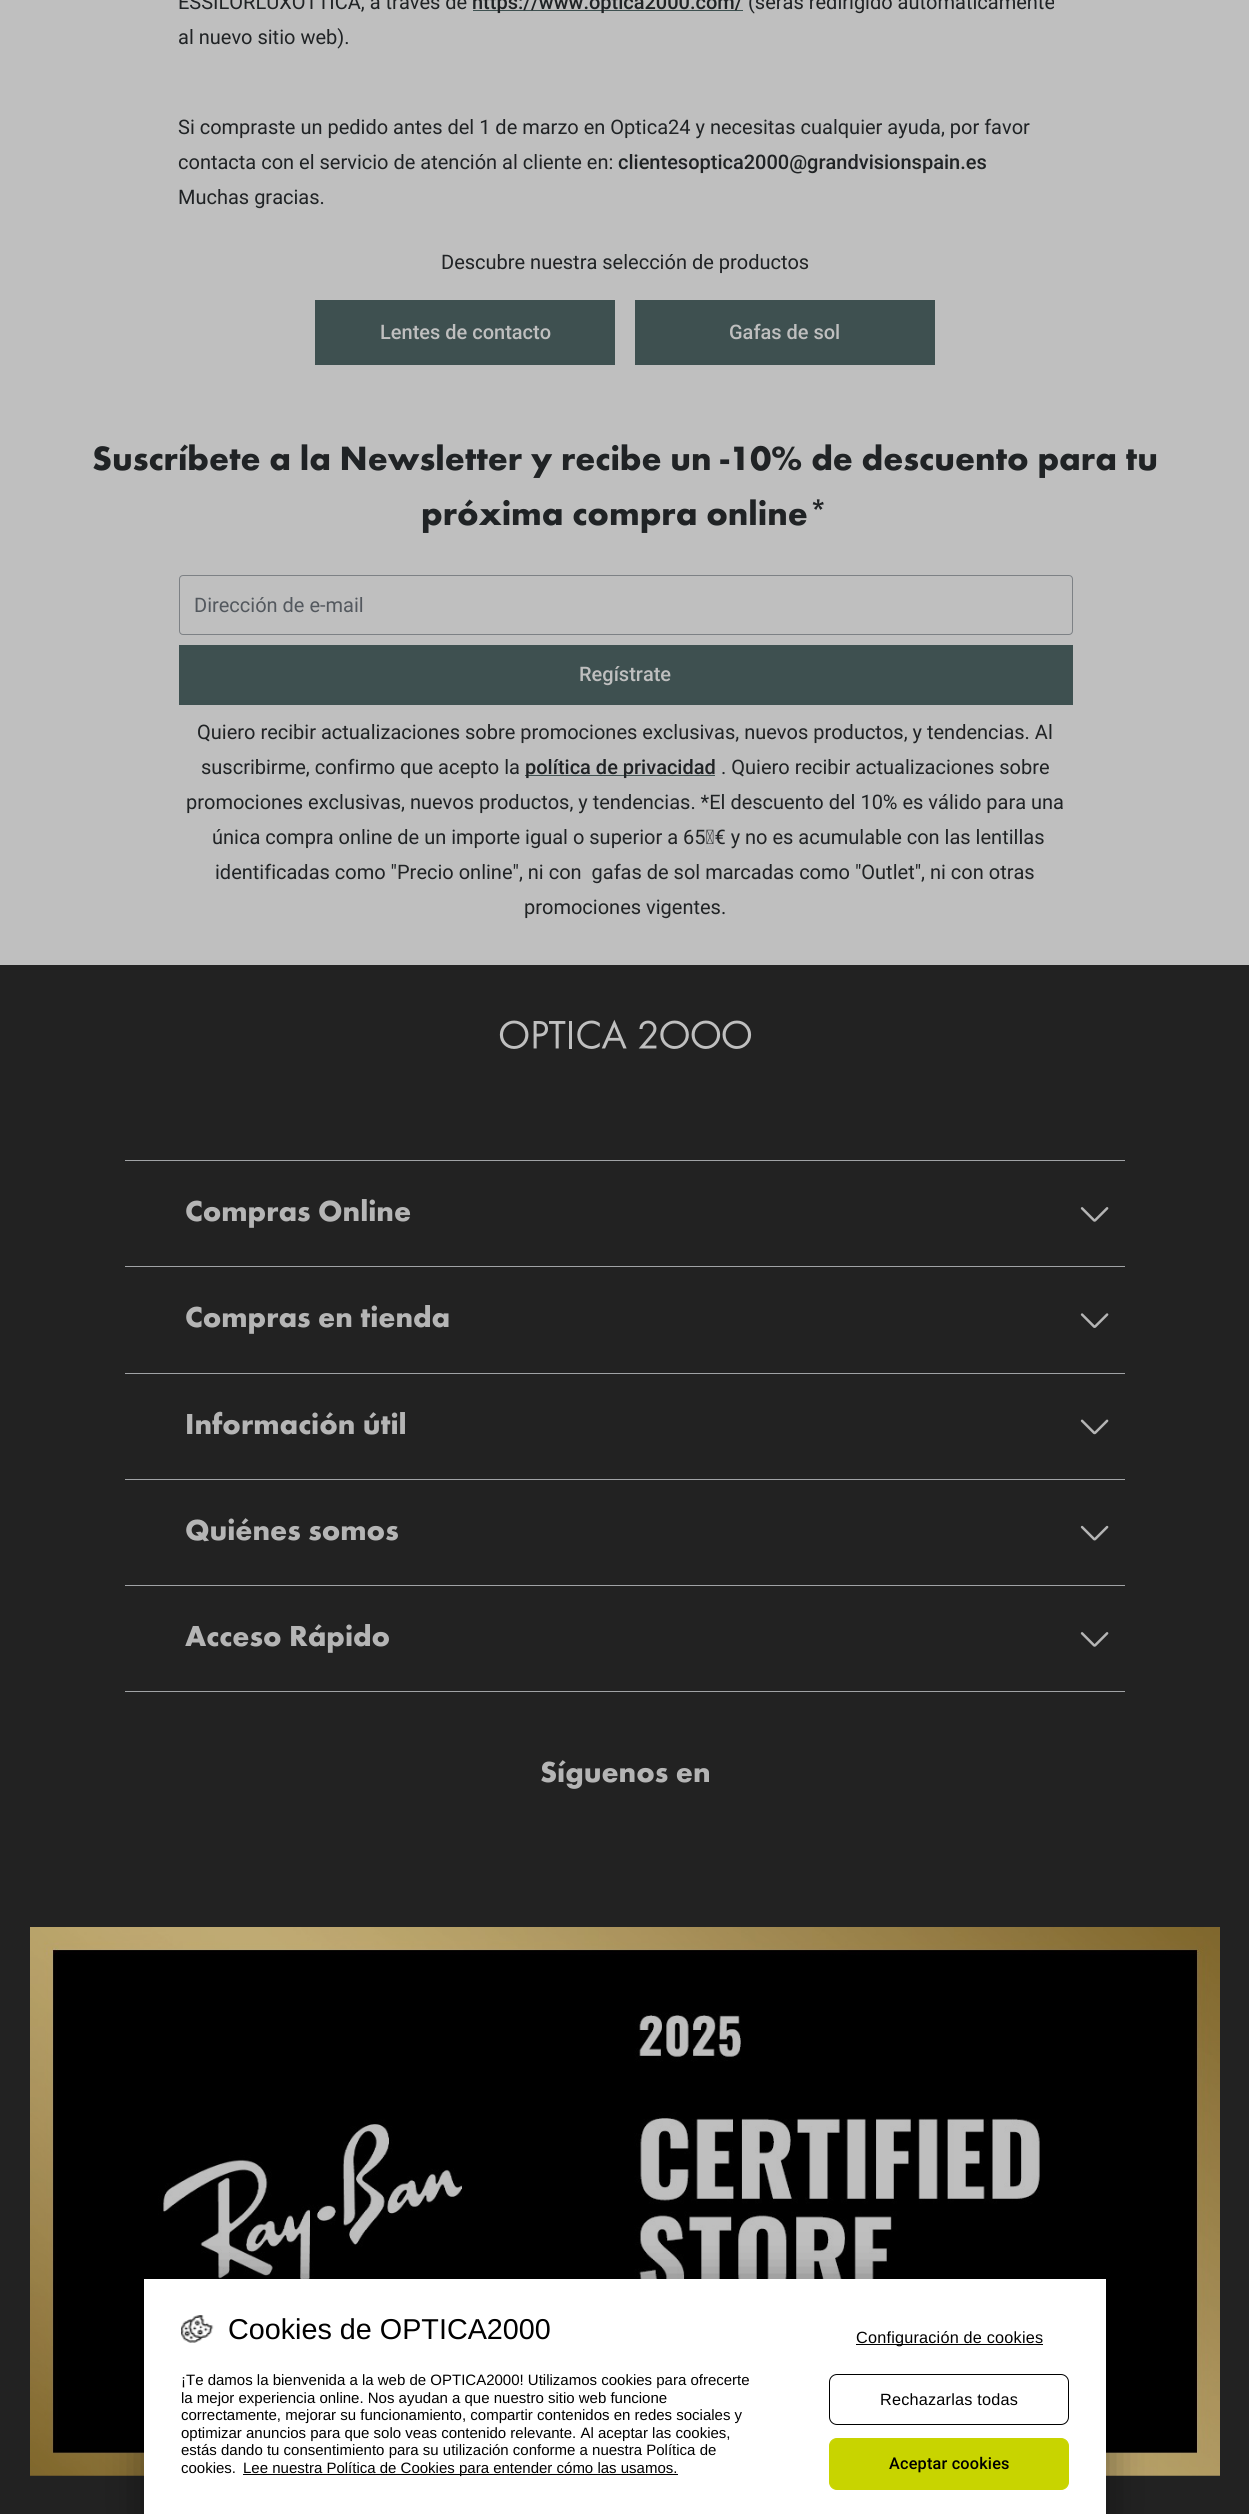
import math
import cairocffi as cairo

surface = cairo.ImageSurface(cairo.FORMAT_RGB24, 1249, 2514)
cr = cairo.Context(surface)
options = cairo.FontOptions()
options.set_hint_metrics(cairo.HINT_METRICS_OFF)
options.set_hint_style(cairo.HINT_STYLE_NONE)
cr.set_font_options(options)
cr.set_miter_limit(4)


def use_color(code):
    cr.set_source_rgb(*(v / 255 for v in bytes.fromhex(code[-6:])))


def spaced_text(x, y, s, letter, word):
    cr.move_to(x, y)
    for ch in s:
        cr.show_text(ch)
        cr.rel_move_to(letter + word * (ch == ' '), 0)


def round_rect(x, y, w, h, r):
    cr.new_sub_path()
    for i, (u, v) in enumerate([(x + w - r, y + h - r), (x + r, y + h - r), (x + r, y + r), (x + w - r, y + r)]):
        cr.arc(u, v, r, i * math.pi / 2, (i + 1) * math.pi / 2)
    cr.close_path()


def shadow(x, y, w, h, r, blur, alpha):
    cr.push_group_with_content(cairo.CONTENT_ALPHA)
    cr.set_operator(cairo.OPERATOR_SOURCE)
    for i in range(15, -16, -2):
        e = blur * i / 6
        if min(w, h) + 2 * e > 0:
            cr.set_source_rgba(0, 0, 0, alpha * math.erfc((i - 1) / 8.5) / 2)
            round_rect(x - e, y - e, w + 2 * e, h + 2 * e, max(0, min(r + e + blur * .6, min(w, h) / 2 + e)))
            cr.fill()
    cr.mask(cr.pop_group())


def picture(path, x, y, w, h):
    cr.save()
    cr.set_source_surface(cairo.ImageSurface.create_from_png(path), x, y)
    cr.rectangle(x, y, w, h)
    cr.fill()
    cr.restore()


use_color("#bfbfbf")
cr.paint()
cr.select_font_face("Roboto")
cr.set_font_size(20)
use_color("#202325")
cr.move_to(178, 9)
cr.show_text("ESSILORLUXOTTICA, a través de")
use_color("#3e5050")
cr.rectangle(473, 10, 270, 1)
cr.fill()
cr.select_font_face("Roboto Medium")
use_color("#202325")
cr.move_to(472, 9)
cr.show_text("https://www.optica2000.com/")
cr.select_font_face("Roboto")
cr.move_to(748, 9)
cr.show_text("(serás redirigido automáticamente")
cr.move_to(178, 44)
cr.show_text("al nuevo sitio web).")
cr.move_to(178, 134)
cr.show_text("Si compraste un pedido antes del 1 de marzo en Optica24 y necesitas cualquier ayuda, por favor")
cr.move_to(178, 169)
cr.show_text("contacta con el servicio de atención al cliente en:")
cr.select_font_face("Roboto Medium")
cr.move_to(618, 169)
cr.show_text("clientesoptica2000@grandvisionspain.es")
cr.select_font_face("Roboto")
cr.move_to(178, 204)
cr.show_text("Muchas gracias.")
cr.move_to(441, 269)
cr.show_text("Descubre nuestra selección de productos")
use_color("#3e5050")
cr.rectangle(315, 300, 300, 65)
cr.fill()
cr.select_font_face("Roboto Medium")
use_color("#bfbfbf")
cr.move_to(380, 339)
cr.show_text("Lentes de contacto")
use_color("#3e5050")
cr.rectangle(635, 300, 300, 65)
cr.fill()
use_color("#bfbfbf")
cr.move_to(729, 339)
cr.show_text("Gafas de sol")
cr.select_font_face("Futura", cairo.FONT_SLANT_NORMAL, cairo.FONT_WEIGHT_BOLD)
cr.set_font_size(35)
use_color("#202325")
cr.move_to(92, 470)
cr.show_text("Suscríbete a la Newsletter y recibe un -10% de descuento para tu")
cr.move_to(421, 525)
cr.show_text("próxima compra online*")
round_rect(179.5, 575.5, 893, 59, 3.5)
use_color("#7d8185")
cr.set_line_width(1)
cr.stroke()
cr.select_font_face("Roboto")
cr.set_font_size(20)
use_color("#53585e")
cr.move_to(194, 612)
cr.show_text("Dirección de e-mail")
use_color("#3e5050")
cr.rectangle(179, 645, 894, 60)
cr.fill()
cr.select_font_face("Roboto Medium")
use_color("#bfbfbf")
cr.move_to(579, 681)
cr.show_text("Regístrate")
cr.select_font_face("Roboto")
use_color("#202325")
cr.move_to(197, 739)
cr.show_text("Quiero recibir actualizaciones sobre promociones exclusivas, nuevos productos, y tendencias. Al")
cr.move_to(201, 774)
cr.show_text("suscribirme, confirmo que acepto la")
use_color("#3e5050")
cr.rectangle(525, 775, 190, 1)
cr.fill()
cr.select_font_face("Roboto Medium")
use_color("#202325")
cr.move_to(525, 774)
cr.show_text("política de privacidad")
cr.select_font_face("Roboto")
cr.move_to(721, 774)
cr.show_text(". Quiero recibir actualizaciones sobre")
cr.move_to(186, 809)
cr.show_text("promociones exclusivas, nuevos productos, y tendencias. *El descuento del 10% es válido para una")
cr.move_to(212, 844)
cr.show_text("única compra online de un importe igual o superior a 65 € y no es acumulable con las lentillas")
cr.move_to(215, 879)
cr.show_text("identificadas como \"Precio online\", ni con  gafas de sol marcadas como \"Outlet\", ni con otras")
cr.move_to(524, 914)
cr.show_text("promociones vigentes.")
use_color("#222222")
cr.rectangle(0, 965, 1249, 1549)
cr.fill()
picture("img1.png", 499, 1019, 253, 30)
use_color("#a1a3a6")
cr.rectangle(125, 1160, 1000, 1)
cr.fill()
cr.rectangle(125, 1266, 1000, 1)
cr.fill()
cr.select_font_face("Futura", cairo.FONT_SLANT_NORMAL, cairo.FONT_WEIGHT_BOLD)
cr.set_font_size(30)
use_color("#b5b5b5")
cr.move_to(185, 1221)
cr.show_text("Compras Online")
picture("img2.png", 1080, 1207, 29, 15)
use_color("#a1a3a6")
cr.rectangle(125, 1373, 1000, 1)
cr.fill()
use_color("#b5b5b5")
cr.move_to(185, 1327)
cr.show_text("Compras en tienda")
picture("img3.png", 1080, 1313, 29, 15)
use_color("#a1a3a6")
cr.rectangle(125, 1479, 1000, 1)
cr.fill()
use_color("#b5b5b5")
cr.move_to(185, 1434)
cr.show_text("Información útil")
picture("img4.png", 1080, 1419, 29, 16)
use_color("#a1a3a6")
cr.rectangle(125, 1585, 1000, 1)
cr.fill()
use_color("#b5b5b5")
cr.move_to(185, 1540)
cr.show_text("Quiénes somos")
picture("img5.png", 1080, 1525, 29, 16)
use_color("#a1a3a6")
cr.rectangle(125, 1691, 1000, 1)
cr.fill()
use_color("#b5b5b5")
cr.move_to(185, 1646)
cr.show_text("Acceso Rápido")
picture("img2.png", 1080, 1632, 29, 15)
cr.move_to(540, 1782)
cr.show_text("Síguenos en")
picture("img6.png", 30, 1927, 1190, 549)
use_color("#000000")
shadow(144, 2284, 962, 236, 0, 21, 0.42)
use_color("#ffffff")
cr.rectangle(144, 2279, 962, 235)
cr.fill()
picture("img7.png", 181, 2315, 33, 28)
cr.select_font_face("Liberation Sans")
cr.set_font_size(28.75)
use_color("#000000")
cr.move_to(228, 2339)
cr.show_text("Cookies de OPTICA2000")
cr.set_font_size(15)
cr.move_to(181, 2385)
cr.show_text("¡Te damos la bienvenida a la web de OPTICA2000! Utilizamos cookies para ofrecerte")
cr.move_to(181, 2403)
cr.show_text("la mejor experiencia online. Nos ayudan a que nuestro sitio web funcione")
cr.move_to(181, 2420)
cr.show_text("correctamente, mejorar su funcionamiento, compartir contenidos en redes sociales y")
cr.move_to(181, 2438)
cr.show_text("optimizar anuncios para que solo veas contenido relevante. Al aceptar las cookies,")
cr.move_to(181, 2455)
cr.show_text("estás dando tu consentimiento para su utilización conforme a nuestra Política de")
cr.move_to(181, 2473)
cr.show_text("cookies.")
cr.rectangle(243, 2474, 435, 1)
cr.fill()
cr.move_to(243, 2473)
cr.show_text("Lee nuestra Política de Cookies para entender cómo las usamos.")
cr.rectangle(856, 2344, 187, 1)
cr.fill()
cr.set_font_size(16.25)
spaced_text(856, 2343, "Configuración de cookies", 0.2, 0)
round_rect(829.5, 2374.5, 239, 50, 7.5)
cr.stroke()
spaced_text(880, 2405, "Rechazarlas todas", 0.2, 0)
use_color("#c8d400")
round_rect(829.5, 2438.5, 239, 51, 7.5)
cr.fill_preserve()
cr.stroke()
cr.select_font_face("Roboto Medium")
use_color("#000000")
spaced_text(889, 2469, "Aceptar cookies", 0.2, 0)
surface.write_to_png("result.png")
